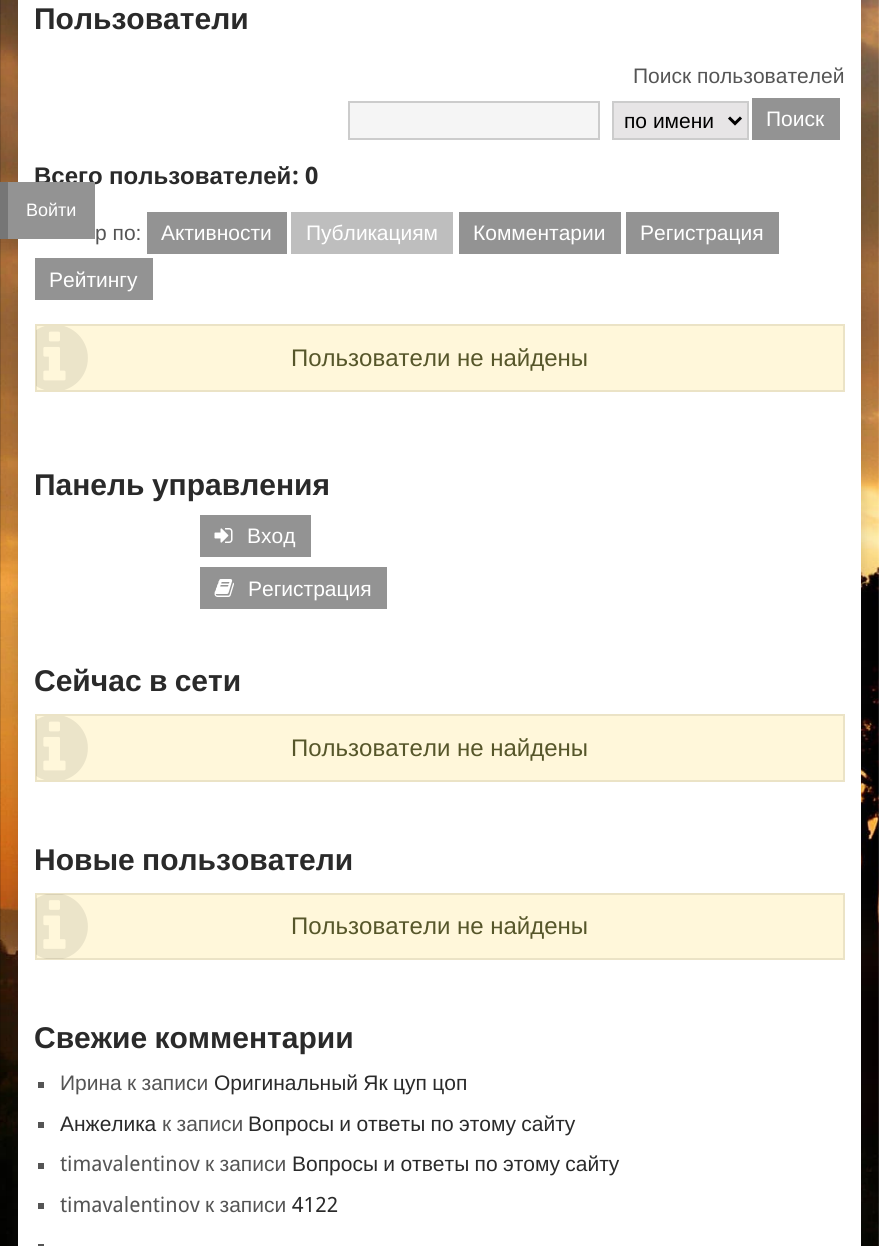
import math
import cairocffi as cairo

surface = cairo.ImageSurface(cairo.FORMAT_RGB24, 879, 1246)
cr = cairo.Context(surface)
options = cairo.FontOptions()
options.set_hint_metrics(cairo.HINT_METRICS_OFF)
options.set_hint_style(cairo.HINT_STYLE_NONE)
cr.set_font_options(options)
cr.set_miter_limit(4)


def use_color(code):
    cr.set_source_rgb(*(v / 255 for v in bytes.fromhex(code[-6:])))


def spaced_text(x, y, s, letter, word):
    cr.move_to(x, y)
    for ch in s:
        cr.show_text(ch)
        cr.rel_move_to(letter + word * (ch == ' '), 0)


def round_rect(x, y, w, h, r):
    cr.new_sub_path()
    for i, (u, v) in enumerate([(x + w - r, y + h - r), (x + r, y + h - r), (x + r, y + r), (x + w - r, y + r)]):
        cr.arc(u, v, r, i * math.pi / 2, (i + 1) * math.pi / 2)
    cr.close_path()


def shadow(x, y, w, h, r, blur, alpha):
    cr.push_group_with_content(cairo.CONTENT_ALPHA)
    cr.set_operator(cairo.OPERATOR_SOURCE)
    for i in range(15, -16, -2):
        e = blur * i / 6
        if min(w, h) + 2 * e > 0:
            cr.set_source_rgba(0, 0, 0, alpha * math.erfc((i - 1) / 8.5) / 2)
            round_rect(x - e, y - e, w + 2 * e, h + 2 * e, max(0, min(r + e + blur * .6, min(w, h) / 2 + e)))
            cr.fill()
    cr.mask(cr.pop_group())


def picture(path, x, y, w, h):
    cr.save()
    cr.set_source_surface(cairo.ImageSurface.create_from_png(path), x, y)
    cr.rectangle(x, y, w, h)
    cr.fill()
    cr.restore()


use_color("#ffffff")
cr.paint()
picture("img1.png", 0, 0, 879, 1246)
use_color("#323232")
shadow(18, -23, 843, 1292, 0, 7.5, 0.17)
use_color("#ffffff")
cr.rectangle(18, 0, 843, 1246)
cr.fill()
cr.set_source_rgba(0, 0, 0, 0.15)
cr.rectangle(0, 0, 1, 1126)
cr.fill()
cr.select_font_face("Liberation Sans", cairo.FONT_SLANT_NORMAL, cairo.FONT_WEIGHT_BOLD)
cr.set_font_size(30)
use_color("#2a2a2a")
cr.move_to(34, 29)
cr.show_text("Пользователи")
cr.select_font_face("Liberation Sans")
cr.set_font_size(21)
use_color("#555555")
cr.move_to(633, 83)
cr.show_text("Поиск пользователей")
use_color("#f5f5f5")
cr.rectangle(349, 102, 250, 37)
cr.fill_preserve()
use_color("#cccccc")
cr.stroke()
use_color("#e7e5e6")
cr.rectangle(613, 102, 135, 37)
cr.fill_preserve()
use_color("#cccccc")
cr.stroke()
cr.new_path()
cr.move_to(729, 117.5)
cr.line_to(735, 123.5)
cr.line_to(741, 117.5)
use_color("#000000")
cr.set_line_width(3)
cr.stroke()
cr.move_to(624, 128)
cr.show_text("по имени")
use_color("#939393")
cr.rectangle(752, 98, 88, 42)
cr.fill()
use_color("#ffffff")
cr.move_to(766, 126)
cr.show_text("Поиск")
cr.select_font_face("Liberation Sans", cairo.FONT_SLANT_NORMAL, cairo.FONT_WEIGHT_BOLD)
cr.set_font_size(24)
use_color("#2a2a2a")
cr.move_to(34, 184)
cr.show_text("Всего")
cr.move_to(109, 184)
cr.show_text("пользователей")
cr.select_font_face("Droid Sans", cairo.FONT_SLANT_NORMAL, cairo.FONT_WEIGHT_BOLD)
cr.move_to(292, 184)
cr.show_text(": 0")
cr.select_font_face("Liberation Sans")
cr.set_font_size(21)
use_color("#555555")
cr.move_to(95, 240)
cr.show_text("р по:")
use_color("#939393")
cr.rectangle(147, 212, 140, 42)
cr.fill()
use_color("#ffffff")
cr.move_to(161, 240)
cr.show_text("Активности")
use_color("#bebebe")
cr.rectangle(291, 212, 162, 42)
cr.fill()
use_color("#ffffff")
cr.move_to(306, 240)
cr.show_text("Публикациям")
use_color("#939393")
cr.rectangle(459, 212, 162, 42)
cr.fill()
use_color("#ffffff")
cr.move_to(473, 240)
cr.show_text("Комментарии")
use_color("#939393")
cr.rectangle(626, 212, 153, 42)
cr.fill()
use_color("#ffffff")
cr.move_to(640, 240)
cr.show_text("Регистрация")
use_color("#939393")
cr.rectangle(35, 258, 118, 42)
cr.fill()
use_color("#ffffff")
cr.move_to(49, 287)
cr.show_text("Рейтингу")
use_color("#fff7da")
cr.rectangle(36, 325, 808, 66)
cr.fill_preserve()
use_color("#ebe3c6")
cr.set_line_width(2)
cr.stroke()
picture("img2.png", 36, 326, 52, 64)
cr.set_font_size(24)
use_color("#56562a")
cr.move_to(291, 366)
cr.show_text("Пользователи не найдены")
cr.select_font_face("Liberation Sans", cairo.FONT_SLANT_NORMAL, cairo.FONT_WEIGHT_BOLD)
cr.set_font_size(30)
use_color("#2a2a2a")
spaced_text(34, 495, "Панель управления", 0, -1)
use_color("#939393")
cr.rectangle(200, 515, 111, 42)
cr.fill()
picture("img3.png", 214, 528, 19, 15)
cr.select_font_face("Liberation Sans")
cr.set_font_size(21)
use_color("#ffffff")
cr.move_to(247, 543)
cr.show_text("Вход")
use_color("#939393")
cr.rectangle(200, 567, 187, 42)
cr.fill()
picture("img4.png", 214, 579, 20, 18)
use_color("#ffffff")
cr.move_to(248, 596)
cr.show_text("Регистрация")
cr.select_font_face("Liberation Sans", cairo.FONT_SLANT_NORMAL, cairo.FONT_WEIGHT_BOLD)
cr.set_font_size(30)
use_color("#2a2a2a")
spaced_text(34, 691, "Сейчас в сети", 0, -1)
use_color("#fff7da")
cr.rectangle(36, 715, 808, 66)
cr.fill_preserve()
use_color("#ebe3c6")
cr.stroke()
picture("img2.png", 36, 716, 52, 64)
cr.select_font_face("Liberation Sans")
cr.set_font_size(24)
use_color("#56562a")
cr.move_to(291, 756)
cr.show_text("Пользователи не найдены")
cr.select_font_face("Liberation Sans", cairo.FONT_SLANT_NORMAL, cairo.FONT_WEIGHT_BOLD)
cr.set_font_size(30)
use_color("#2a2a2a")
spaced_text(34, 870, "Новые пользователи", 0, -1)
use_color("#fff7da")
cr.rectangle(36, 894, 808, 65)
cr.fill_preserve()
use_color("#ebe3c6")
cr.stroke()
picture("img5.png", 36, 894, 52, 65)
cr.select_font_face("Liberation Sans")
cr.set_font_size(24)
use_color("#56562a")
cr.move_to(291, 934)
cr.show_text("Пользователи не найдены")
cr.select_font_face("Liberation Sans", cairo.FONT_SLANT_NORMAL, cairo.FONT_WEIGHT_BOLD)
cr.set_font_size(30)
use_color("#2a2a2a")
spaced_text(34, 1048, "Свежие комментарии", 0, -1)
use_color("#555555")
cr.rectangle(38, 1082, 6, 6)
cr.fill()
cr.select_font_face("Liberation Sans")
cr.set_font_size(21)
cr.move_to(60, 1090)
cr.show_text("Ирина")
spaced_text(127, 1090, "к записи", 0, -0.5)
use_color("#2a2a2a")
spaced_text(214, 1090, "Оригинальный Як цуп цоп", 0, -0.5)
use_color("#555555")
cr.rectangle(38, 1122, 6, 6)
cr.fill()
use_color("#2a2a2a")
cr.move_to(60, 1131)
cr.show_text("Анжелика")
use_color("#555555")
spaced_text(162, 1131, "к записи", 0, -0.5)
use_color("#2a2a2a")
spaced_text(248, 1131, "Вопросы и ответы по этому сайту", 0, -0.5)
use_color("#555555")
cr.rectangle(38, 1163, 6, 6)
cr.fill()
cr.select_font_face("Droid Sans")
cr.move_to(60, 1171)
cr.show_text("timavalentinov")
cr.select_font_face("Liberation Sans")
spaced_text(205, 1171, "к записи", 0, -0.5)
use_color("#2a2a2a")
spaced_text(292, 1171, "Вопросы и ответы по этому сайту", 0, -0.5)
use_color("#555555")
cr.rectangle(38, 1203, 6, 6)
cr.fill()
cr.select_font_face("Droid Sans")
cr.move_to(60, 1212)
cr.show_text("timavalentinov")
cr.select_font_face("Liberation Sans")
spaced_text(205, 1212, "к записи", 0, -0.5)
cr.select_font_face("Droid Sans")
use_color("#2a2a2a")
cr.move_to(292, 1212)
cr.show_text("4122")
use_color("#555555")
cr.rectangle(38, 1244, 6, 2)
cr.fill()
use_color("#939393")
cr.rectangle(8, 182, 87, 57)
cr.fill()
use_color("#767676")
cr.rectangle(0, 182, 8, 57)
cr.fill()
cr.select_font_face("Liberation Sans")
cr.set_font_size(18)
use_color("#ffffff")
cr.move_to(26, 216)
cr.show_text("Войти")
surface.write_to_png("result.png")
